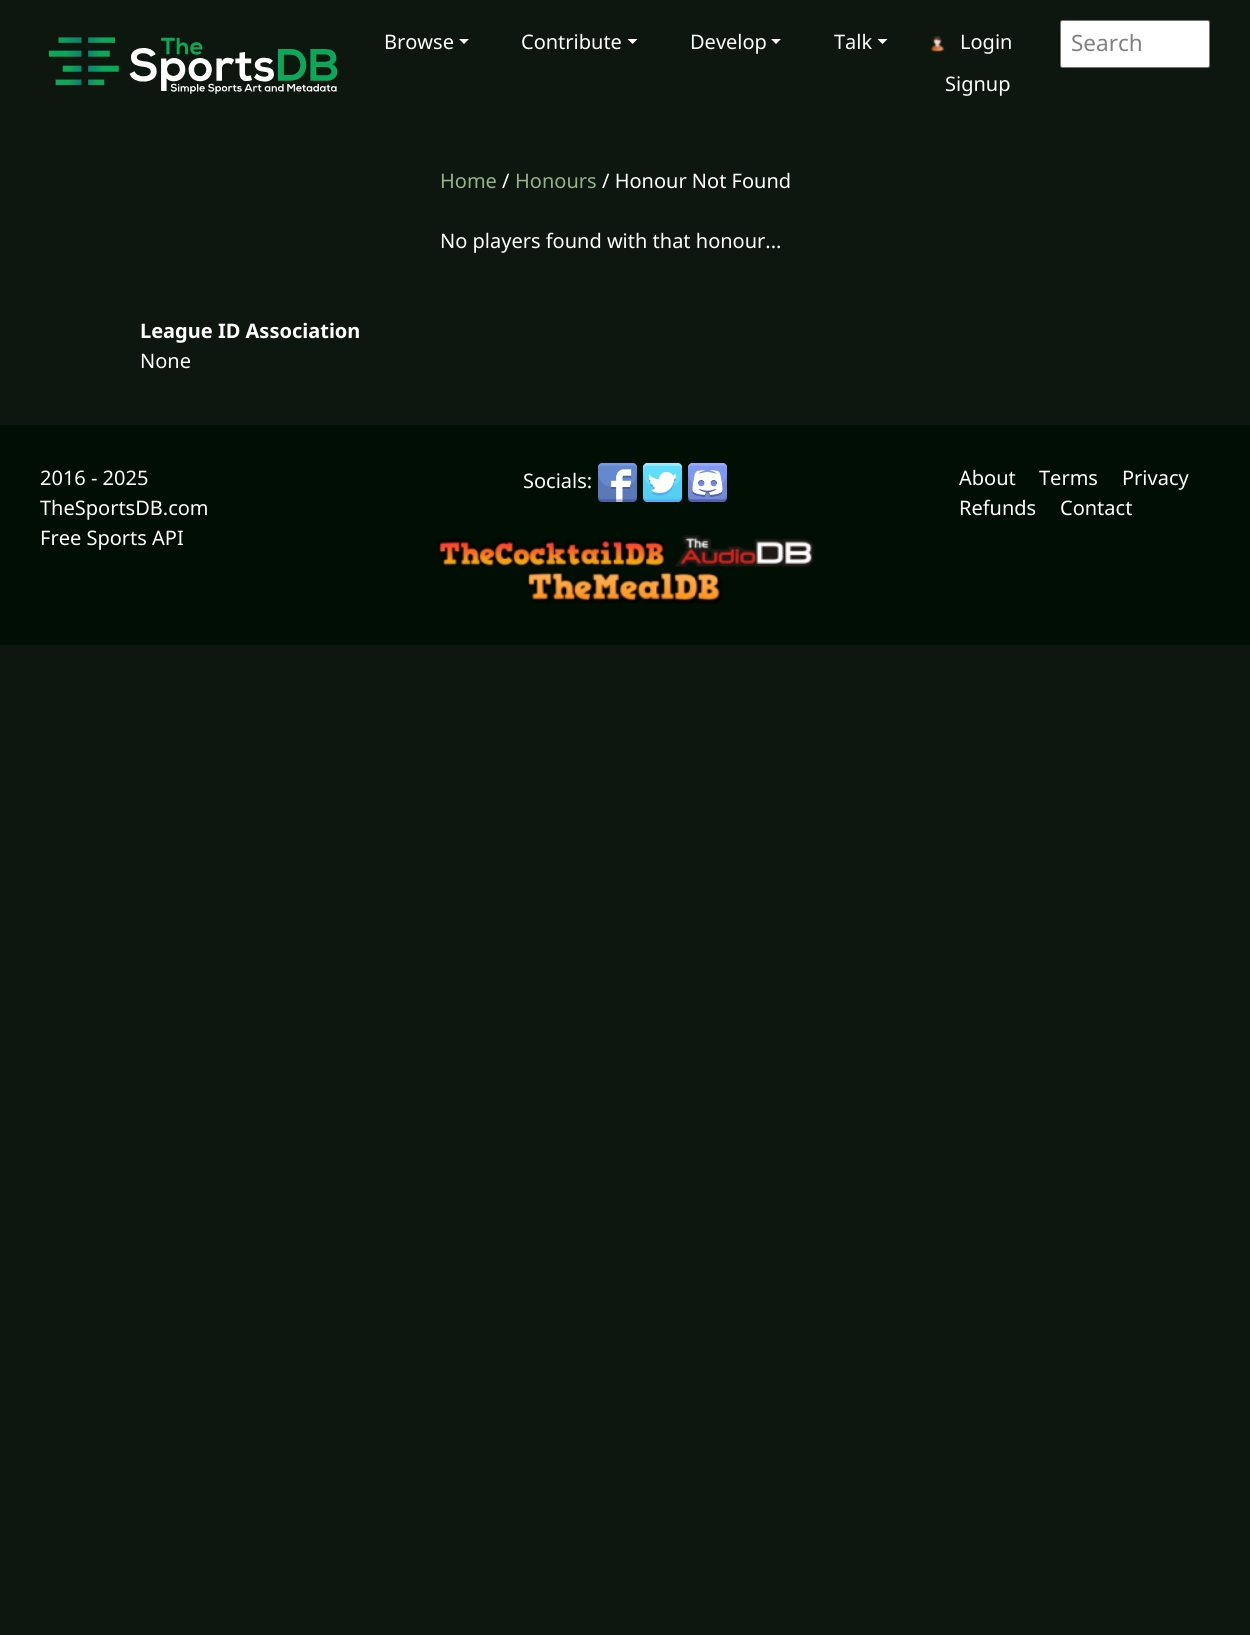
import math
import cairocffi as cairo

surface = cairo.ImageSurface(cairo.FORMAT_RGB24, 1250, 1635)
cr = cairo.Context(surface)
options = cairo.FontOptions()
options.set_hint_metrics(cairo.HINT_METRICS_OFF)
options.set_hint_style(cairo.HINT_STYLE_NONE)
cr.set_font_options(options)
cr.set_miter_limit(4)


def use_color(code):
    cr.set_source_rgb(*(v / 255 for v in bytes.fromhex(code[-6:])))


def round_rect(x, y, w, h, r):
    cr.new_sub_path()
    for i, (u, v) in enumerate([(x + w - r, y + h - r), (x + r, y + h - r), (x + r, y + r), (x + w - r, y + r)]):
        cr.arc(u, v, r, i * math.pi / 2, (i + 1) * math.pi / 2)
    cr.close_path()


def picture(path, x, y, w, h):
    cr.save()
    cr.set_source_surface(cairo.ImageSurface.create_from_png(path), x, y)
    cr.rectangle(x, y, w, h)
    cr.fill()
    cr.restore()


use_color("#0d170f")
cr.paint()
picture("img1.png", 48, 37, 290, 57)
cr.select_font_face("Noto Sans")
cr.set_font_size(20)
use_color("#ffffff")
cr.move_to(384, 49)
cr.show_text("Browse")
cr.new_path()
cr.move_to(459, 39)
cr.line_to(469, 39)
cr.line_to(464, 44)
cr.close_path()
cr.fill()
cr.move_to(521, 49)
cr.show_text("Contribute")
cr.new_path()
cr.move_to(627.5, 39)
cr.line_to(637.5, 39)
cr.line_to(632.5, 44)
cr.close_path()
cr.fill()
cr.move_to(690, 49)
cr.show_text("Develop")
cr.new_path()
cr.move_to(771, 39)
cr.line_to(781, 39)
cr.line_to(776, 44)
cr.close_path()
cr.fill()
cr.move_to(834, 49)
cr.show_text("Talk")
cr.new_path()
cr.move_to(877.5, 39)
cr.line_to(887.5, 39)
cr.line_to(882.5, 44)
cr.close_path()
cr.fill()
picture("img2.png", 930, 36, 15, 16)
cr.move_to(960, 49)
cr.show_text("Login")
cr.move_to(945, 91)
cr.show_text("Signup")
round_rect(1060.5, 20.5, 149, 47, 2)
cr.fill_preserve()
use_color("#767676")
cr.set_line_width(1)
cr.stroke()
cr.set_font_size(22.5)
use_color("#808080")
cr.move_to(1071, 51)
cr.show_text("Search")
cr.set_font_size(20)
use_color("#94b387")
cr.move_to(440, 188)
cr.show_text("Home")
use_color("#ffffff")
cr.move_to(502, 188)
cr.show_text("/")
use_color("#94b387")
cr.move_to(515, 188)
cr.show_text("Honours")
use_color("#ffffff")
cr.move_to(602, 188)
cr.show_text("/ Honour Not Found")
cr.move_to(440, 248)
cr.show_text("No players found with that honour...")
cr.select_font_face("Noto Sans", cairo.FONT_SLANT_NORMAL, cairo.FONT_WEIGHT_BOLD)
cr.move_to(140, 338)
cr.show_text("League ID Association")
cr.select_font_face("Noto Sans")
cr.move_to(140, 368)
cr.show_text("None")
use_color("#010e03")
cr.rectangle(0, 425, 1250, 220)
cr.fill()
use_color("#ffffff")
cr.move_to(40, 485)
cr.show_text("2016 - 2025")
cr.move_to(40, 515)
cr.show_text("TheSportsDB.com")
cr.move_to(40, 545)
cr.show_text("Free Sports API")
cr.move_to(523, 488)
cr.show_text("Socials:")
picture("img3.png", 598, 463, 39, 39)
picture("img4.png", 643, 463, 39, 39)
picture("img5.png", 688, 463, 39, 39)
picture("img6.png", 437, 538, 228, 29)
picture("img7.png", 675, 535, 139, 32)
picture("img8.png", 527, 572, 196, 32)
cr.move_to(959, 485)
cr.show_text("About")
cr.move_to(1039, 485)
cr.show_text("Terms")
cr.move_to(1122, 485)
cr.show_text("Privacy")
cr.move_to(959, 515)
cr.show_text("Refunds")
cr.move_to(1060, 515)
cr.show_text("Contact")
surface.write_to_png("result.png")
